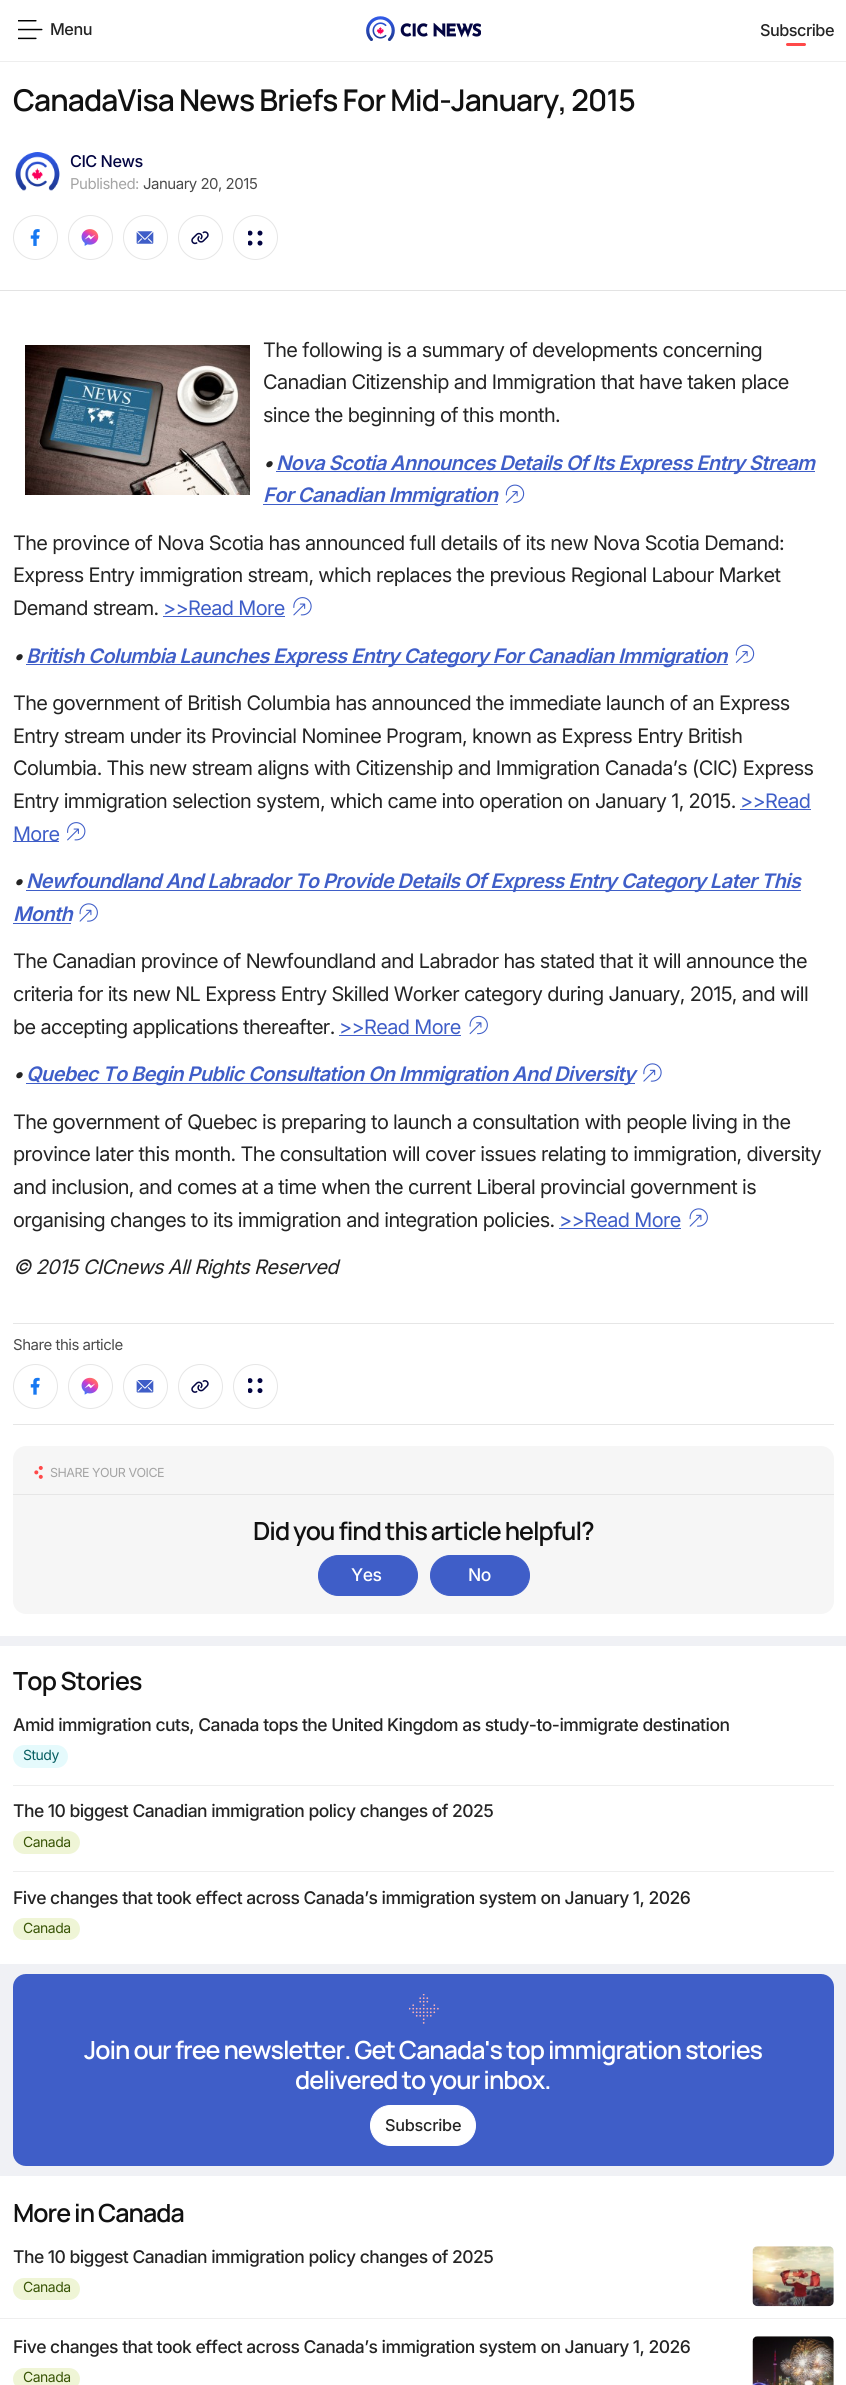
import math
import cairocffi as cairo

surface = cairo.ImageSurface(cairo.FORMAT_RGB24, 846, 2385)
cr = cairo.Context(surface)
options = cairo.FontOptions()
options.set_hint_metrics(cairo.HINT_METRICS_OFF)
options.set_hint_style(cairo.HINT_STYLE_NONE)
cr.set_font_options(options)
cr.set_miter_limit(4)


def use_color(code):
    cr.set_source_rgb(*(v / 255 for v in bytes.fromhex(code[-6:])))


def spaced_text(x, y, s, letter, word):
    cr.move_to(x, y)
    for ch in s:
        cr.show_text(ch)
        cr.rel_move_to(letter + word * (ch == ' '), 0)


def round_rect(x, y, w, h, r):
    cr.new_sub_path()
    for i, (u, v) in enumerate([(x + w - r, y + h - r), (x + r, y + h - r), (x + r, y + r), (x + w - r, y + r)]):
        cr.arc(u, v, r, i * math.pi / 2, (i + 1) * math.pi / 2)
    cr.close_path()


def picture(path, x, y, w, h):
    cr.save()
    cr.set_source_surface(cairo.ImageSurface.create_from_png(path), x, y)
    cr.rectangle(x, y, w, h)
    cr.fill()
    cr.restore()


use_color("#ffffff")
cr.paint()
use_color("#eeeeee")
cr.rectangle(0, 61, 846, 1)
cr.fill()
picture("img1.png", 18, 20, 25, 20)
cr.select_font_face("Inter Medium")
cr.set_font_size(16.25)
use_color("#242424")
spaced_text(50, 35, "Menu", -0.5, 0)
picture("img2.png", 366, 16, 115, 25)
spaced_text(760, 36, "Subscribe", -0.5, 0)
use_color("#ff4949")
round_rect(786, 43, 20, 3, 1.5)
cr.fill()
cr.select_font_face("Manrope SemiBold")
cr.set_font_size(30)
use_color("#111111")
spaced_text(13, 111, "CanadaVisa News Briefs For Mid-January, 2015", -0.9, 0)
use_color("#e3e3e3")
cr.rectangle(0, 290, 846, 1)
cr.fill()
picture("img3.png", 15, 152, 45, 39)
cr.select_font_face("Inter Medium")
cr.set_font_size(16.25)
use_color("#030542")
spaced_text(70, 167, "CIC News", -0.5, 0)
cr.select_font_face("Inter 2")
cr.set_font_size(15)
use_color("#a4a4a4")
spaced_text(70, 189, "Published:", -0.5, 0)
use_color("#4a4a4a")
spaced_text(143, 189, "January 20, 2015", -0.5, 0)
cr.new_path()
cr.arc(35.5, 237.5, 22, 0, 2 * math.pi)
use_color("#e6e6e6")
cr.set_line_width(1)
cr.stroke()
picture("img4.png", 30, 229, 10, 17)
cr.arc(90.5, 237.5, 22, 0, 2 * math.pi)
cr.stroke()
picture("img5.png", 81, 229, 18, 17)
cr.arc(145.5, 237.5, 22, 0, 2 * math.pi)
cr.stroke()
picture("img6.png", 136, 231, 18, 13)
cr.arc(200.5, 237.5, 22, 0, 2 * math.pi)
cr.stroke()
picture("img7.png", 191, 231, 18, 14)
cr.arc(255.5, 237.5, 22, 0, 2 * math.pi)
cr.stroke()
picture("img8.png", 248, 230, 15, 16)
picture("img9.png", 25, 345, 225, 150)
cr.select_font_face("Inter")
cr.set_font_size(20)
use_color("#242424")
spaced_text(263, 357, "The following is a summary of developments concerning", -0.6, 0)
spaced_text(263, 389, "Canadian Citizenship and Immigration that have taken place", -0.6, 0)
spaced_text(263, 422, "since the beginning of this month.", -0.6, 0)
use_color("#3f5ec8")
cr.rectangle(276, 471, 539, 1)
cr.fill()
cr.select_font_face("Inter SemiBold", cairo.FONT_SLANT_ITALIC)
spaced_text(276, 470, "Nova Scotia Announces Details Of Its Express Entry Stream", -0.6, 0)
cr.rectangle(263, 504, 235, 1)
cr.fill()
spaced_text(263, 502, "For Canadian Immigration", -0.6, 0)
picture("img10.png", 505, 484, 20, 19)
use_color("#242424")
spaced_text(263, 470, "•", -0.6, 0)
cr.select_font_face("Inter")
spaced_text(13, 550, "The province of Nova Scotia has announced full details of its new Nova Scotia Demand:", -0.6, 0)
spaced_text(13, 582, "Express Entry immigration stream, which replaces the previous Regional Labour Market", -0.6, 0)
spaced_text(13, 615, "Demand stream.", -0.6, 0)
use_color("#3f5ec8")
spaced_text(163, 615, ">>Read More", -0.6, 0)
cr.rectangle(163, 616, 122, 1)
cr.fill()
picture("img11.png", 293, 597, 19, 19)
cr.select_font_face("Inter SemiBold", cairo.FONT_SLANT_ITALIC)
use_color("#242424")
spaced_text(13, 663, "•", -0.6, 0)
use_color("#3f5ec8")
cr.rectangle(26, 664, 702, 1)
cr.fill()
spaced_text(26, 663, "British Columbia Launches Express Entry Category For Canadian Immigration", -0.6, 0)
picture("img10.png", 735, 644, 20, 19)
cr.select_font_face("Inter")
use_color("#242424")
spaced_text(13, 710, "The government of British Columbia has announced the immediate launch of an Express", -0.6, 0)
spaced_text(13, 743, "Entry stream under its Provincial Nominee Program, known as Express Entry British", -0.6, 0)
spaced_text(13, 775, "Columbia. This new stream aligns with Citizenship and Immigration Canada’s (CIC) Express", -0.6, 0)
spaced_text(13, 808, "Entry immigration selection system, which came into operation on January 1, 2015.", -0.6, 0)
use_color("#3f5ec8")
spaced_text(740, 808, ">>Read", -0.6, 0)
cr.rectangle(740, 809, 71, 1)
cr.fill()
cr.rectangle(13, 841, 46, 1)
cr.fill()
spaced_text(13, 841, "More", -0.6, 0)
picture("img12.png", 67, 822, 19, 19)
cr.rectangle(26, 890, 775, 1)
cr.fill()
cr.select_font_face("Inter SemiBold", cairo.FONT_SLANT_ITALIC)
spaced_text(26, 888, "Newfoundland And Labrador To Provide Details Of Express Entry Category Later This", -0.6, 0)
spaced_text(13, 921, "Month", -0.6, 0)
cr.rectangle(13, 923, 58, 1)
cr.fill()
picture("img13.png", 79, 903, 19, 19)
use_color("#242424")
spaced_text(13, 888, "•", -0.6, 0)
cr.select_font_face("Inter")
spaced_text(13, 968, "The Canadian province of Newfoundland and Labrador has stated that it will announce the", -0.6, 0)
spaced_text(13, 1001, "criteria for its new NL Express Entry Skilled Worker category during January, 2015, and will", -0.6, 0)
spaced_text(13, 1034, "be accepting applications thereafter.", -0.6, 0)
use_color("#3f5ec8")
spaced_text(339, 1034, ">>Read More", -0.6, 0)
cr.rectangle(339, 1035, 122, 1)
cr.fill()
picture("img14.png", 469, 1015, 19, 20)
cr.select_font_face("Inter SemiBold", cairo.FONT_SLANT_ITALIC)
use_color("#242424")
spaced_text(13, 1081, "•", -0.6, 0)
use_color("#3f5ec8")
cr.rectangle(26, 1083, 609, 1)
cr.fill()
spaced_text(26, 1081, "Quebec To Begin Public Consultation On Immigration And Diversity", -0.6, 0)
picture("img15.png", 643, 1063, 19, 19)
cr.select_font_face("Inter")
use_color("#242424")
spaced_text(13, 1129, "The government of Quebec is preparing to launch a consultation with people living in the", -0.6, 0)
spaced_text(13, 1161, "province later this month. The consultation will cover issues relating to immigration, diversity", -0.6, 0)
spaced_text(13, 1194, "and inclusion, and comes at a time when the current Liberal provincial government is", -0.6, 0)
spaced_text(13, 1227, "organising changes to its immigration and integration policies.", -0.6, 0)
use_color("#3f5ec8")
spaced_text(559, 1227, ">>Read More", -0.6, 0)
cr.rectangle(559, 1228, 122, 1)
cr.fill()
picture("img13.png", 689, 1208, 19, 19)
cr.select_font_face("Inter", cairo.FONT_SLANT_ITALIC)
use_color("#242424")
spaced_text(13, 1274, "© 2015 CICnews All Rights Reserved", -0.6, 0)
use_color("#e6e6e6")
cr.rectangle(13, 1323, 821, 1)
cr.fill()
cr.rectangle(13, 1424, 821, 1)
cr.fill()
cr.select_font_face("Inter 2")
cr.set_font_size(15)
use_color("#4a4a4a")
spaced_text(13, 1350, "Share this article", -0.5, 0)
cr.new_path()
cr.arc(35.5, 1386.5, 22, 0, 2 * math.pi)
use_color("#e6e6e6")
cr.stroke()
picture("img16.png", 30, 1377, 10, 18)
cr.arc(90.5, 1386.5, 22, 0, 2 * math.pi)
cr.stroke()
picture("img17.png", 81, 1377, 18, 18)
cr.arc(145.5, 1386.5, 22, 0, 2 * math.pi)
cr.stroke()
picture("img18.png", 136, 1380, 18, 13)
cr.arc(200.5, 1386.5, 22, 0, 2 * math.pi)
cr.stroke()
picture("img19.png", 191, 1380, 18, 13)
cr.arc(255.5, 1386.5, 22, 0, 2 * math.pi)
cr.stroke()
picture("img20.png", 248, 1378, 15, 16)
use_color("#f6f6f6")
round_rect(13, 1446, 821, 168, 13)
cr.fill()
use_color("#e6e6e6")
cr.rectangle(13, 1494, 821, 1)
cr.fill()
picture("img21.png", 34, 1465, 9, 14)
cr.set_font_size(12.5)
use_color("#a4a4a4")
spaced_text(50, 1477, "SHARE YOUR VOICE", -0.5, 0)
cr.select_font_face("Manrope SemiBold")
cr.set_font_size(25)
use_color("#111111")
spaced_text(253, 1540, "Did you find this article helpful?", -1, 0)
use_color("#3f5ec8")
round_rect(318.5, 1555.5, 99, 40, 20)
cr.fill_preserve()
cr.stroke()
cr.select_font_face("Inter Medium")
cr.set_font_size(17.5)
use_color("#ffffff")
spaced_text(351, 1581, "Yes", -0.5, 0)
use_color("#3f5ec8")
round_rect(430.5, 1555.5, 99, 40, 20)
cr.fill_preserve()
cr.stroke()
use_color("#ffffff")
spaced_text(468, 1581, "No", -0.5, 0)
use_color("#f0f1f5")
cr.rectangle(0, 1636, 846, 10)
cr.fill()
cr.select_font_face("Manrope SemiBold")
cr.set_font_size(25)
use_color("#111111")
spaced_text(13, 1690, "Top Stories", -0.75, 0)
use_color("#eeeeee")
cr.rectangle(13, 1785, 821, 1)
cr.fill()
cr.select_font_face("Inter Medium")
cr.set_font_size(17.5)
use_color("#242424")
spaced_text(13, 1731, "Amid immigration cuts, Canada tops the United Kingdom as study-to-immigrate destination", -0.53, 0)
use_color("#e5fafc")
round_rect(13, 1745, 55, 23, 11.5)
cr.fill()
cr.select_font_face("Inter 2")
cr.set_font_size(14)
use_color("#065e61")
spaced_text(23, 1760, "Study", -0.5, 0)
use_color("#eeeeee")
cr.rectangle(13, 1871, 821, 1)
cr.fill()
cr.select_font_face("Inter Medium")
cr.set_font_size(17.5)
use_color("#242424")
spaced_text(13, 1817, "The 10 biggest Canadian immigration policy changes of 2025", -0.53, 0)
use_color("#eff5d6")
round_rect(13, 1831, 67, 23, 11.5)
cr.fill()
cr.select_font_face("Inter 2")
cr.set_font_size(14)
use_color("#395506")
spaced_text(23, 1847, "Canada", -0.5, 0)
cr.select_font_face("Inter Medium")
cr.set_font_size(17.5)
use_color("#242424")
spaced_text(13, 1904, "Five changes that took effect across Canada’s immigration system on January 1, 2026", -0.53, 0)
use_color("#eff5d6")
round_rect(13, 1918, 67, 22, 11)
cr.fill()
cr.select_font_face("Inter 2")
cr.set_font_size(14)
use_color("#395506")
spaced_text(23, 1933, "Canada", -0.5, 0)
use_color("#f0f1f5")
cr.rectangle(0, 1964, 846, 212)
cr.fill()
use_color("#3f5ec8")
round_rect(13, 1974, 821, 192, 13)
cr.fill()
picture("img22.png", 409, 1994, 30, 30)
cr.select_font_face("Manrope SemiBold")
cr.set_font_size(25)
use_color("#ffffff")
spaced_text(84, 2059, "Join our free newsletter. Get Canada's top immigration stories", -1, 0)
spaced_text(295, 2089, "delivered to your inbox.", -1, 0)
round_rect(370.5, 2105.5, 105, 40, 20)
cr.fill_preserve()
cr.stroke()
cr.select_font_face("Inter Medium")
cr.set_font_size(16.25)
use_color("#242424")
spaced_text(385, 2131, "Subscribe", -0.25, 0)
cr.select_font_face("Manrope SemiBold")
cr.set_font_size(25)
use_color("#111111")
spaced_text(13, 2222, "More in Canada", -1, 0)
use_color("#eeeeee")
cr.rectangle(0, 2318, 846, 1)
cr.fill()
cr.select_font_face("Inter Medium")
cr.set_font_size(17.5)
use_color("#242424")
spaced_text(13, 2263, "The 10 biggest Canadian immigration policy changes of 2025", -0.53, 0)
use_color("#eff5d6")
round_rect(13, 2278, 67, 22, 11)
cr.fill()
cr.select_font_face("Inter 2")
cr.set_font_size(14)
use_color("#395506")
spaced_text(23, 2292, "Canada", -0.5, 0)
picture("img23.png", 752, 2246, 82, 61)
cr.select_font_face("Inter Medium")
cr.set_font_size(17.5)
use_color("#242424")
spaced_text(13, 2353, "Five changes that took effect across Canada’s immigration system on January 1, 2026", -0.53, 0)
use_color("#eff5d6")
round_rect(13, 2368, 67, 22, 11)
cr.fill()
cr.select_font_face("Inter 2")
cr.set_font_size(14)
use_color("#395506")
spaced_text(23, 2382, "Canada", -0.5, 0)
picture("img24.png", 752, 2336, 82, 49)
surface.write_to_png("result.png")
